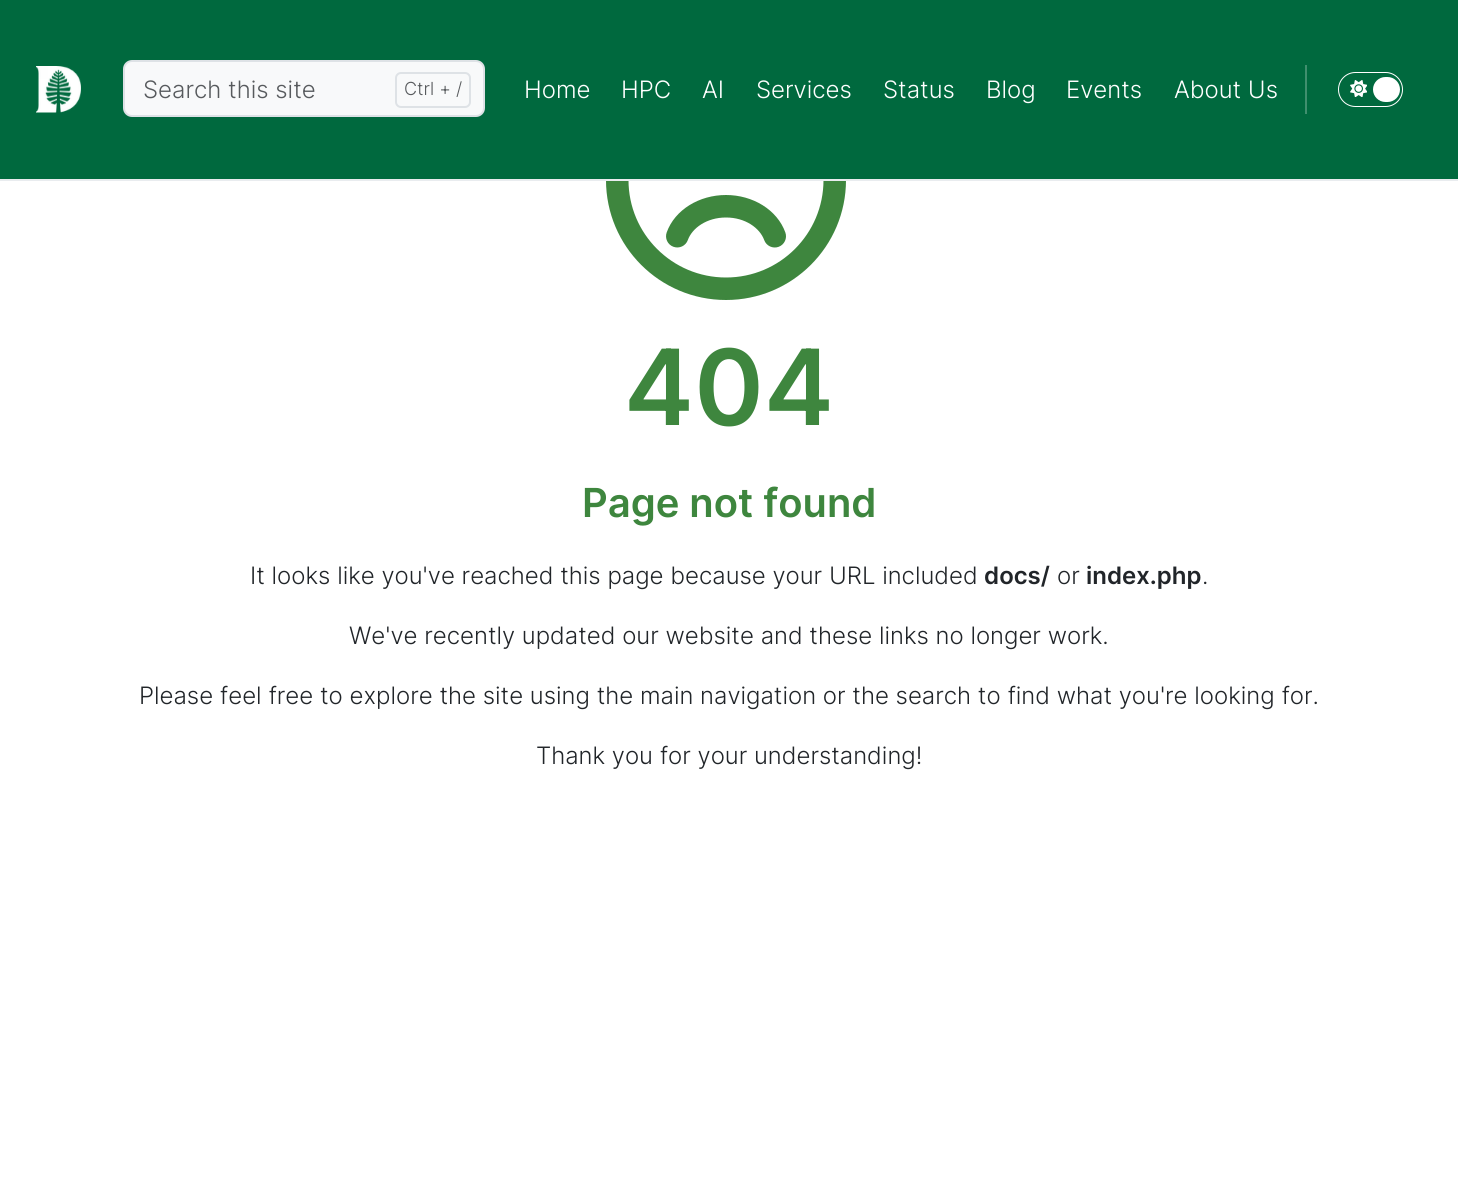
import math
import cairocffi as cairo

surface = cairo.ImageSurface(cairo.FORMAT_RGB24, 1458, 1179)
cr = cairo.Context(surface)
options = cairo.FontOptions()
options.set_hint_metrics(cairo.HINT_METRICS_OFF)
options.set_hint_style(cairo.HINT_STYLE_NONE)
cr.set_font_options(options)
cr.set_miter_limit(4)


def use_color(code):
    cr.set_source_rgb(*(v / 255 for v in bytes.fromhex(code[-6:])))


def round_rect(x, y, w, h, r):
    cr.new_sub_path()
    for i, (u, v) in enumerate([(x + w - r, y + h - r), (x + r, y + h - r), (x + r, y + r), (x + w - r, y + r)]):
        cr.arc(u, v, r, i * math.pi / 2, (i + 1) * math.pi / 2)
    cr.close_path()


def picture(path, x, y, w, h):
    cr.save()
    cr.set_source_surface(cairo.ImageSurface.create_from_png(path), x, y)
    cr.rectangle(x, y, w, h)
    cr.fill()
    cr.restore()


use_color("#ffffff")
cr.paint()
use_color("#00693e")
cr.rectangle(0, 0, 1458, 179)
cr.fill()
use_color("#e9ecef")
cr.rectangle(0, 179, 1458, 2)
cr.fill()
picture("img1.png", 36, 66, 45, 47)
use_color("#f8f9fa")
round_rect(124, 61, 360, 55, 8)
cr.fill_preserve()
use_color("#dee2e6")
cr.stroke()
cr.select_font_face("Inter Light")
cr.set_font_size(24)
use_color("#575a5d")
cr.move_to(143, 98)
cr.show_text("Search this site")
round_rect(396, 73, 74, 34, 5)
use_color("#dee2e6")
cr.stroke()
cr.set_font_size(18)
use_color("#575a5d")
cr.move_to(404, 95)
cr.show_text("Ctrl + /")
cr.set_font_size(24)
use_color("#ffffff")
cr.move_to(524, 98)
cr.show_text("Home")
cr.move_to(621, 98)
cr.show_text("HPC")
cr.move_to(702, 98)
cr.show_text("AI")
cr.move_to(756, 98)
cr.show_text("Services")
cr.move_to(883, 98)
cr.show_text("Status")
cr.move_to(986, 98)
cr.show_text("Blog")
cr.move_to(1066, 98)
cr.show_text("Events")
cr.move_to(1174, 98)
cr.show_text("About Us")
use_color("#408f6e")
cr.rectangle(1305, 65, 2, 49)
cr.fill()
round_rect(1338.5, 72.5, 64, 34, 17)
use_color("#ffffff")
cr.set_line_width(1)
cr.stroke()
picture("img2.png", 1350, 80, 17, 17)
round_rect(1373, 77, 27, 25, 12.5)
cr.fill()
picture("img3.png", 606, 181, 240, 119)
cr.select_font_face("Inter SemiBold")
cr.set_font_size(105)
use_color("#3e863e")
cr.move_to(624, 425)
cr.show_text("404")
cr.set_font_size(40)
cr.move_to(582, 517)
cr.show_text("Page not found")
cr.select_font_face("Inter Light")
cr.set_font_size(24)
use_color("#212529")
cr.move_to(250, 584)
cr.show_text("It looks like you've reached this page because your URL included")
cr.select_font_face("Inter SemiBold")
cr.move_to(984, 584)
cr.show_text("docs/")
cr.select_font_face("Inter Light")
cr.move_to(1057, 584)
cr.show_text("or")
cr.select_font_face("Inter SemiBold")
cr.move_to(1086, 584)
cr.show_text("index.php")
cr.select_font_face("Inter Light")
cr.move_to(1202, 584)
cr.show_text(".")
cr.move_to(349, 644)
cr.show_text("We've recently updated our website and these links no longer work.")
cr.move_to(139, 704)
cr.show_text("Please feel free to explore the site using the main navigation or the search to find what you're looking for.")
cr.move_to(536, 764)
cr.show_text("Thank you for your understanding!")
surface.write_to_png("result.png")
